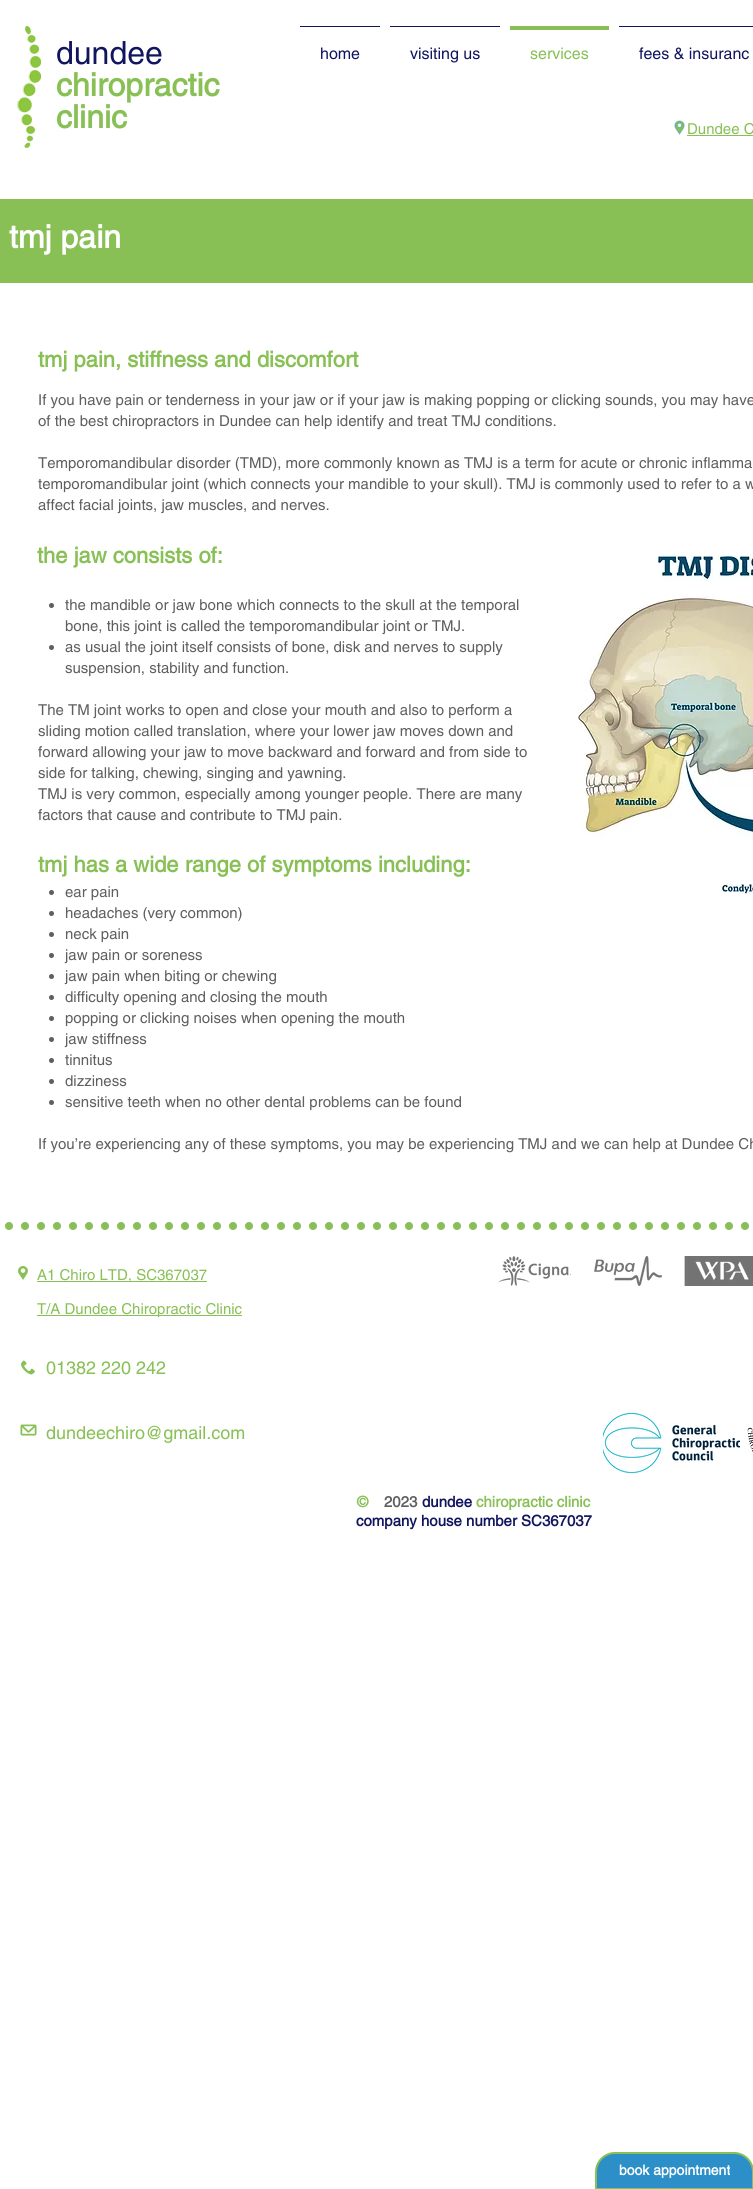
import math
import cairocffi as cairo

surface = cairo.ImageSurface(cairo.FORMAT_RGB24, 753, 2189)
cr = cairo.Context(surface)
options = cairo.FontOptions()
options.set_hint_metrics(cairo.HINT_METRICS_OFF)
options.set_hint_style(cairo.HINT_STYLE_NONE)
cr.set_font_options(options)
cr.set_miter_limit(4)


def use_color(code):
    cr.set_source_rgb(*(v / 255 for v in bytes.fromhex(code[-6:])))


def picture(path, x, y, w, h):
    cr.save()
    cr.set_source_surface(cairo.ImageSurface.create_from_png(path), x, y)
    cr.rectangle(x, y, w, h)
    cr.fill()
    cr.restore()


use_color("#ffffff")
cr.paint()
picture("img1.png", 17, 26, 24, 122)
cr.select_font_face("helvetica")
cr.set_font_size(32)
use_color("#10155e")
cr.move_to(56, 64)
cr.show_text("dundee")
cr.select_font_face("helvetica", cairo.FONT_SLANT_NORMAL, cairo.FONT_WEIGHT_BOLD)
use_color("#88c056")
cr.move_to(56, 96)
cr.show_text("chiropractic")
cr.move_to(56, 128)
cr.show_text("clinic")
use_color("#10155e")
cr.rectangle(300, 26, 80, 1)
cr.fill()
cr.select_font_face("helvetica")
cr.set_font_size(16)
cr.move_to(320, 59)
cr.show_text("home")
cr.rectangle(390, 26, 110, 1)
cr.fill()
cr.move_to(410, 59)
cr.show_text("visiting us")
use_color("#88c056")
cr.rectangle(510, 26, 99, 4)
cr.fill()
cr.move_to(530, 59)
cr.show_text("services")
use_color("#10155e")
cr.rectangle(619, 26, 134, 1)
cr.fill()
cr.move_to(639, 59)
cr.show_text("fees & insuranc")
picture("img2.png", 674, 120, 11, 15)
cr.set_font_size(15)
use_color("#88c056")
cr.move_to(687, 134)
cr.show_text("Dundee C")
cr.rectangle(687, 135, 66, 1)
cr.fill()
cr.rectangle(0, 199, 753, 84)
cr.fill()
cr.select_font_face("helvetica", cairo.FONT_SLANT_NORMAL, cairo.FONT_WEIGHT_BOLD)
cr.set_font_size(32)
use_color("#ffffff")
cr.move_to(9, 248)
cr.show_text("tmj pain")
cr.set_font_size(22)
use_color("#88c056")
cr.move_to(38, 367)
cr.show_text("tmj pain, stiffness and discomfort")
cr.select_font_face("helvetica")
cr.set_font_size(15)
use_color("#605e5e")
cr.move_to(38, 405)
cr.show_text("If you have pain or tenderness in your jaw or if your jaw is making popping or clicking sounds, you may have")
cr.move_to(38, 426)
cr.show_text("of the best chiropractors in Dundee can help identify and treat TMJ conditions.")
cr.move_to(38, 468)
cr.show_text("Temporomandibular disorder (TMD), more commonly known as TMJ is a term for acute or chronic inflamma")
cr.move_to(38, 489)
cr.show_text("temporomandibular joint (which connects your mandible to your skull). TMJ is commonly used to refer to a w")
cr.move_to(38, 510)
cr.show_text("affect facial joints, jaw muscles, and nerves.")
cr.select_font_face("helvetica", cairo.FONT_SLANT_NORMAL, cairo.FONT_WEIGHT_BOLD)
cr.set_font_size(22)
use_color("#88c056")
cr.move_to(37, 563)
cr.show_text("the jaw consists of:")
picture("img3.png", 578, 555, 175, 339)
use_color("#605e5e")
cr.arc(51.5, 605.5, 2.5, 0, 2 * math.pi)
cr.fill()
cr.select_font_face("helvetica")
cr.set_font_size(15)
cr.move_to(65, 610)
cr.show_text("the mandible or jaw bone which connects to the skull at the temporal")
cr.move_to(65, 631)
cr.show_text("bone, this joint is called the temporomandibular joint or TMJ.")
cr.new_path()
cr.arc(51.5, 647.5, 2.5, 0, 2 * math.pi)
cr.fill()
cr.move_to(65, 652)
cr.show_text("as usual the joint itself consists of bone, disk and nerves to supply")
cr.move_to(65, 673)
cr.show_text("suspension, stability and function.")
cr.move_to(38, 715)
cr.show_text("The TM joint works to open and close your mouth and also to perform a")
cr.move_to(38, 736)
cr.show_text("sliding motion called translation, where your lower jaw moves down and")
cr.move_to(38, 757)
cr.show_text("forward allowing your jaw to move backward and forward and from side to")
cr.move_to(38, 778)
cr.show_text("side for talking, chewing, singing and yawning.")
cr.move_to(38, 799)
cr.show_text("TMJ is very common, especially among younger people. There are many")
cr.move_to(38, 820)
cr.show_text("factors that cause and contribute to TMJ pain.")
cr.select_font_face("helvetica", cairo.FONT_SLANT_NORMAL, cairo.FONT_WEIGHT_BOLD)
cr.set_font_size(22)
use_color("#88c056")
cr.move_to(38, 872)
cr.show_text("tmj has a wide range of symptoms including:")
use_color("#605e5e")
cr.new_path()
cr.arc(51.5, 892.5, 2.5, 0, 2 * math.pi)
cr.fill()
cr.select_font_face("helvetica")
cr.set_font_size(15)
cr.move_to(65, 897)
cr.show_text("ear pain")
cr.new_path()
cr.arc(51.5, 913.5, 2.5, 0, 2 * math.pi)
cr.fill()
cr.move_to(65, 918)
cr.show_text("headaches (very common)")
cr.new_path()
cr.arc(51.5, 934.5, 2.5, 0, 2 * math.pi)
cr.fill()
cr.move_to(65, 939)
cr.show_text("neck pain")
cr.new_path()
cr.arc(51.5, 955.5, 2.5, 0, 2 * math.pi)
cr.fill()
cr.move_to(65, 960)
cr.show_text("jaw pain or soreness")
cr.new_path()
cr.arc(51.5, 976.5, 2.5, 0, 2 * math.pi)
cr.fill()
cr.move_to(65, 981)
cr.show_text("jaw pain when biting or chewing")
cr.new_path()
cr.arc(51.5, 997.5, 2.5, 0, 2 * math.pi)
cr.fill()
cr.move_to(65, 1002)
cr.show_text("difficulty opening and closing the mouth")
cr.new_path()
cr.arc(51.5, 1018.5, 2.5, 0, 2 * math.pi)
cr.fill()
cr.move_to(65, 1023)
cr.show_text("popping or clicking noises when opening the mouth")
cr.new_path()
cr.arc(51.5, 1039.5, 2.5, 0, 2 * math.pi)
cr.fill()
cr.move_to(65, 1044)
cr.show_text("jaw stiffness")
cr.new_path()
cr.arc(51.5, 1060.5, 2.5, 0, 2 * math.pi)
cr.fill()
cr.move_to(65, 1065)
cr.show_text("tinnitus")
cr.new_path()
cr.arc(51.5, 1081.5, 2.5, 0, 2 * math.pi)
cr.fill()
cr.move_to(65, 1086)
cr.show_text("dizziness")
cr.new_path()
cr.arc(51.5, 1102.5, 2.5, 0, 2 * math.pi)
cr.fill()
cr.move_to(65, 1107)
cr.show_text("sensitive teeth when no other dental problems can be found")
cr.move_to(38, 1149)
cr.show_text("If you’re experiencing any of these symptoms, you may be experiencing TMJ and we can help at Dundee Ch")
cr.new_path()
cr.move_to(-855, 1226)
cr.line_to(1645, 1226)
use_color("#88c056")
cr.set_line_width(8)
cr.set_line_cap(cairo.LINE_CAP_ROUND)
cr.set_dash([0, 16])
cr.stroke()
picture("img4.png", 18, 1266, 10, 14)
cr.rectangle(37, 1281, 170, 1)
cr.fill()
cr.move_to(37, 1280)
cr.show_text("A1 Chiro LTD, SC367037")
cr.rectangle(37, 1315, 205, 1)
cr.fill()
cr.move_to(37, 1314)
cr.show_text("T/A Dundee Chiropractic Clinic")
picture("img5.png", 498, 1256, 73, 30)
picture("img6.png", 594, 1256, 68, 30)
picture("img7.png", 684, 1256, 69, 30)
picture("img8.png", 21, 1360, 14, 15)
cr.set_font_size(18)
cr.move_to(46, 1374)
cr.show_text("01382 220 242")
picture("img9.png", 20, 1424, 17, 12)
cr.move_to(46, 1439)
cr.show_text("dundeechiro@gmail.com")
picture("img10.png", 603, 1413, 137, 60)
picture("img11.png", 747, 1426, 6, 28)
cr.select_font_face("helvetica", cairo.FONT_SLANT_NORMAL, cairo.FONT_WEIGHT_BOLD)
cr.set_font_size(15)
cr.move_to(357, 1507)
cr.show_text("©")
use_color("#605e5e")
cr.move_to(384, 1507)
cr.show_text("2023")
use_color("#10155e")
cr.move_to(422, 1507)
cr.show_text("dundee")
use_color("#88c056")
cr.move_to(476, 1507)
cr.show_text("chiropractic clinic")
use_color("#10155e")
cr.move_to(356, 1526)
cr.show_text("company house number SC367037")
use_color("#2d8fc8")
cr.new_path()
cr.move_to(615, 2153)
cr.line_to(734, 2153)
cr.curve_to(744.5, 2153, 753, 2161.5, 753, 2172)
cr.line_to(753, 2189)
cr.line_to(596, 2189)
cr.line_to(596, 2172)
cr.curve_to(596, 2161.5, 604.5, 2153, 615, 2153)
cr.close_path()
cr.fill_preserve()
use_color("#88c056")
cr.set_line_width(2)
cr.set_line_cap(cairo.LINE_CAP_BUTT)
cr.set_dash([])
cr.stroke()
cr.set_font_size(14)
use_color("#ffffff")
cr.move_to(619, 2175)
cr.show_text("book appointment")
surface.write_to_png("result.png")
